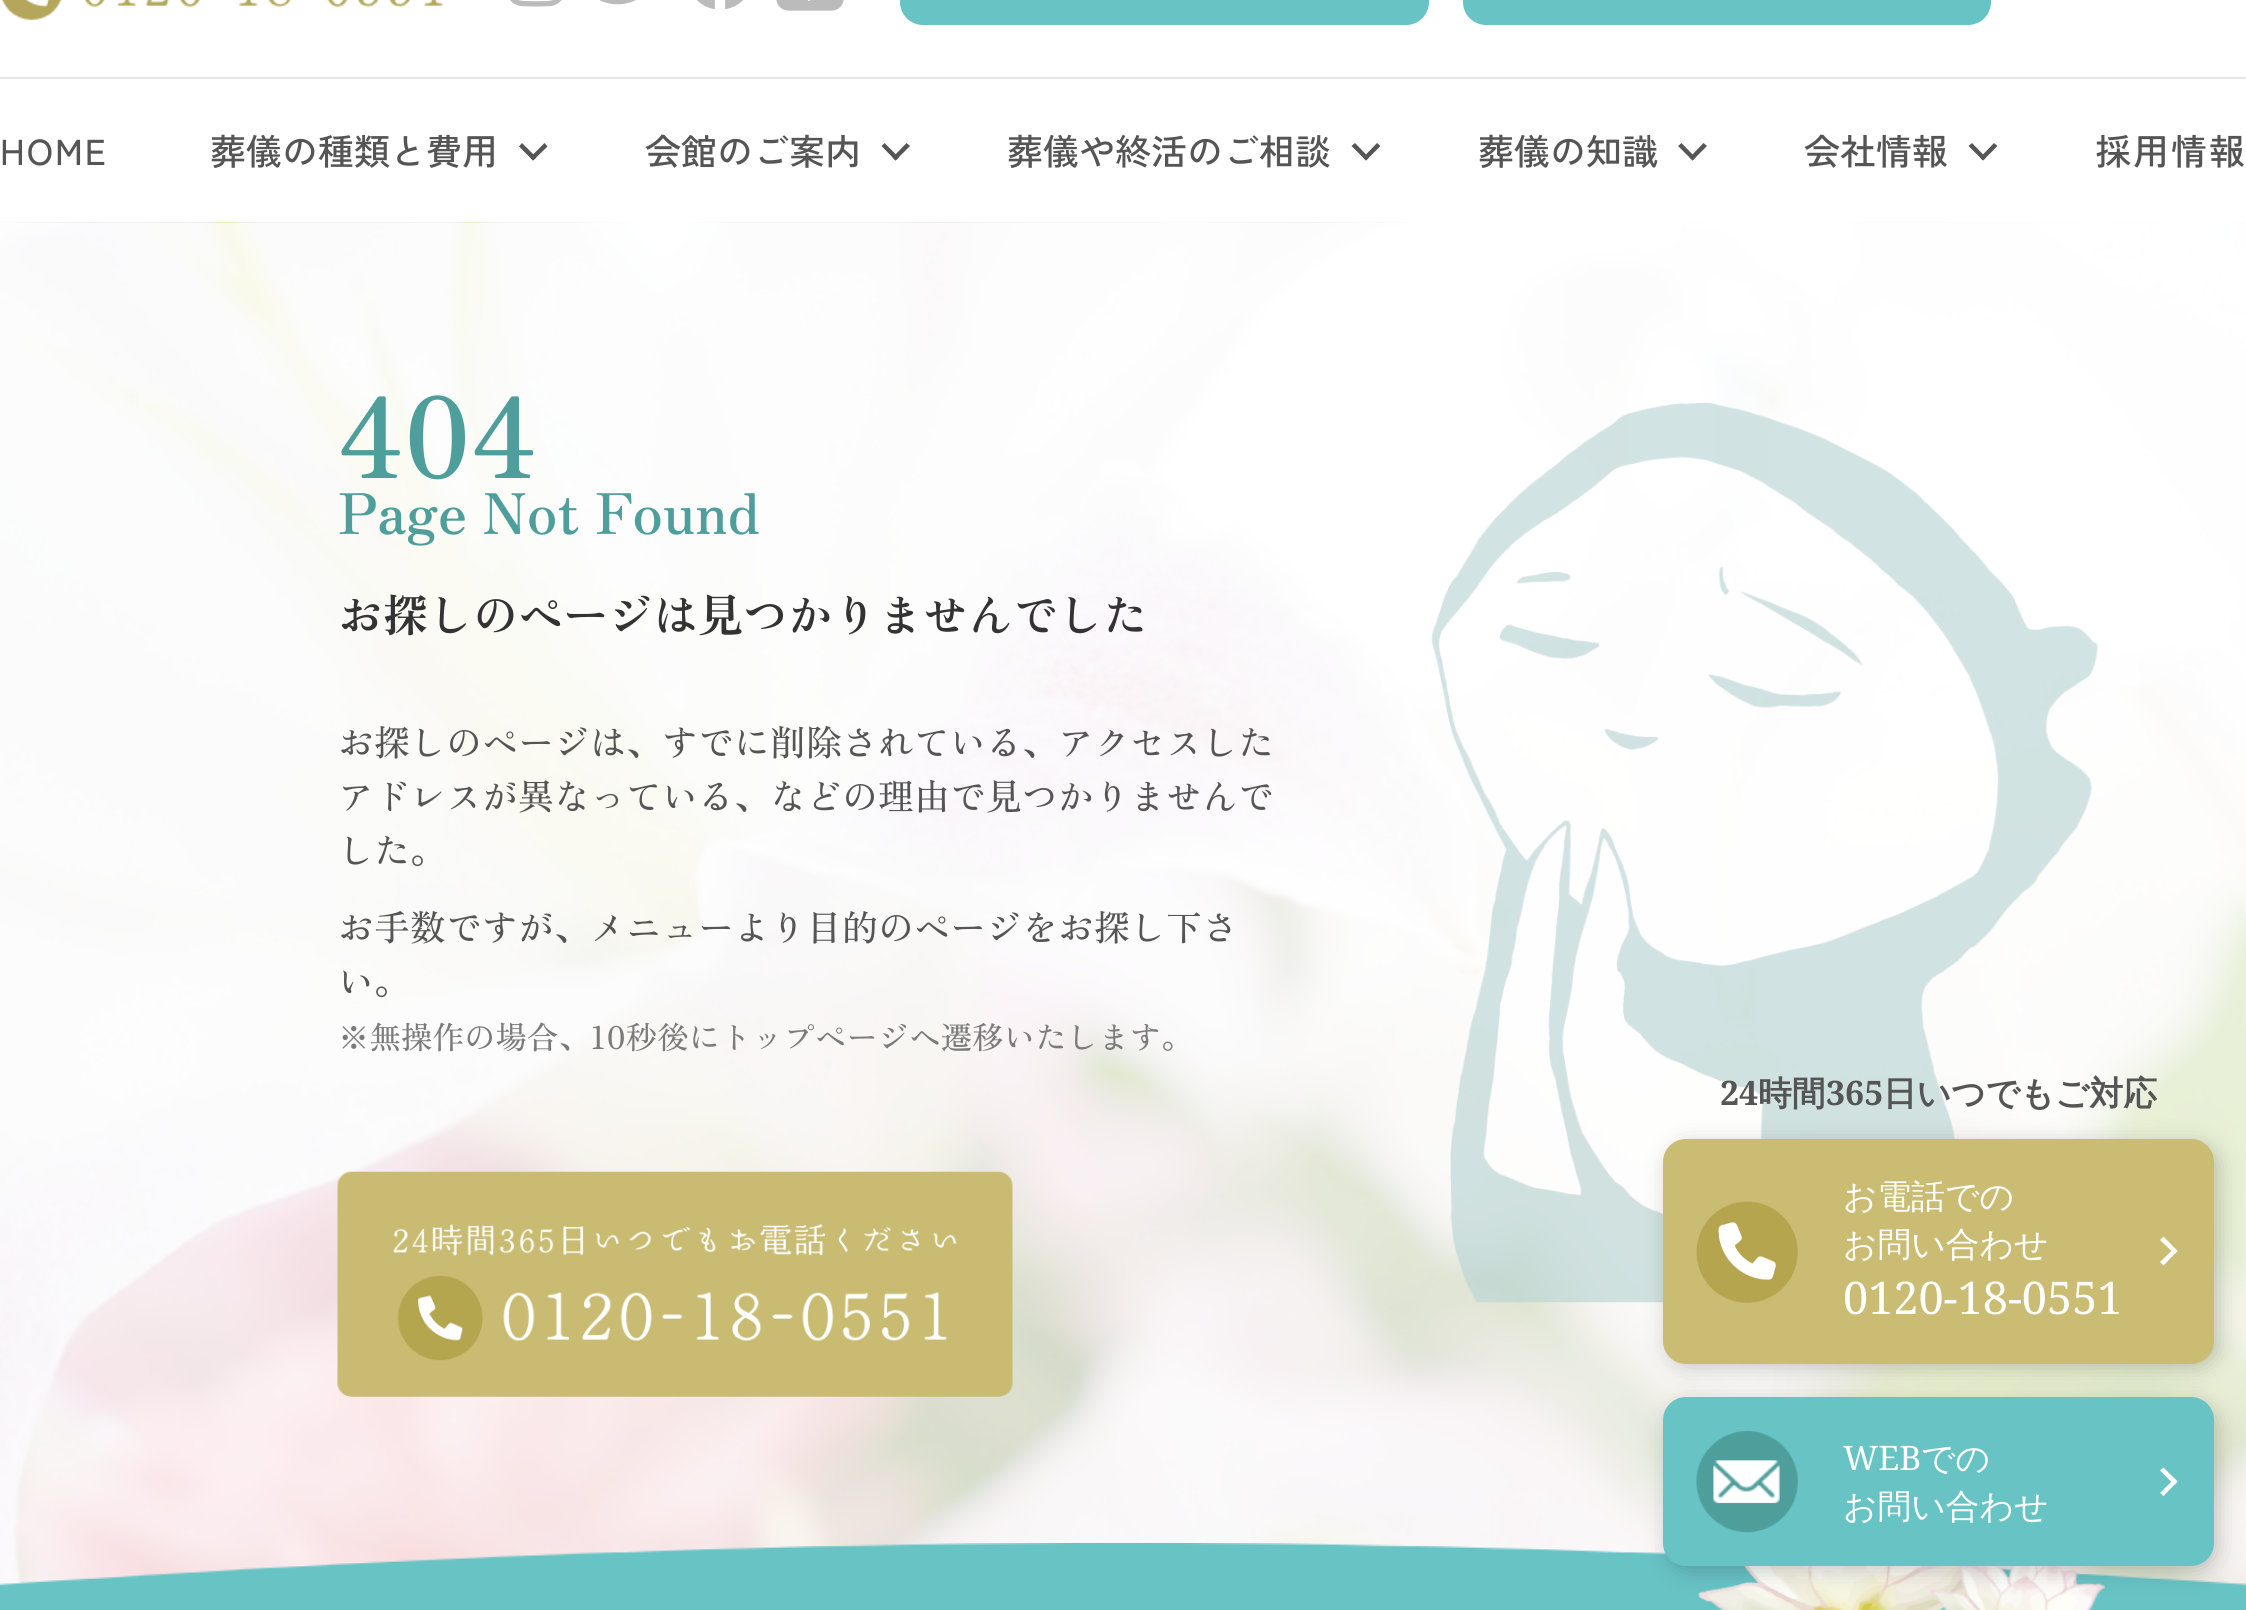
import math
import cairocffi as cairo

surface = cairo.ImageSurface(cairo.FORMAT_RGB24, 2246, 1610)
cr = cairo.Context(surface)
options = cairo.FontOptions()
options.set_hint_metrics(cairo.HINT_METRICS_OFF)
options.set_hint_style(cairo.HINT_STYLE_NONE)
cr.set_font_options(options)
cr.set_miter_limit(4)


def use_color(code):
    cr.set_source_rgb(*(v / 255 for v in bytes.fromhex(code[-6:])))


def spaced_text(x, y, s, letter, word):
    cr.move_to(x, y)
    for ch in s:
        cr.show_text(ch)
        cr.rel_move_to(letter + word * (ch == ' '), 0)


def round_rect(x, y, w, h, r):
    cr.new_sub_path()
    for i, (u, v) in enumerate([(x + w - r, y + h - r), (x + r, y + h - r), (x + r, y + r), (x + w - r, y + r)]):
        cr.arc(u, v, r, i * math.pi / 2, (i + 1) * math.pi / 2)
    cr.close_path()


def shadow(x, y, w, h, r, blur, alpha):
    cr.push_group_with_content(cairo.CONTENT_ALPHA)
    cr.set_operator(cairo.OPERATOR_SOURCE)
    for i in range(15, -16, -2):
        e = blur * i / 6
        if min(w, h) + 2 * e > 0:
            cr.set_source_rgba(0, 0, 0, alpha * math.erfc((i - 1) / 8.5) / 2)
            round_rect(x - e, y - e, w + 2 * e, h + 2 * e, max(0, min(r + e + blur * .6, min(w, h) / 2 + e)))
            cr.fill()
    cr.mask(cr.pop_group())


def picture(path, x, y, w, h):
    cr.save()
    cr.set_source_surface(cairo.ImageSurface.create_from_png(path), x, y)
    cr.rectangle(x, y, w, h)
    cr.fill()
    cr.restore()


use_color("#ffffff")
cr.paint()
use_color("#e8e8e8")
cr.rectangle(0, 77, 2246, 2)
cr.fill()
picture("img1.png", 1, 0, 443, 20)
picture("img2.png", 510, 0, 52, 7)
picture("img3.png", 599, 0, 37, 5)
picture("img4.png", 697, 0, 46, 10)
picture("img5.png", 776, 0, 68, 11)
use_color("#68c3c5")
round_rect(900, -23, 529, 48, 23)
cr.fill()
round_rect(1463, -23, 528, 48, 23)
cr.fill()
cr.select_font_face("Zen Kaku Gothic New Medium")
cr.set_font_size(36)
use_color("#555555")
spaced_text(0, 165, "HOME", 2, 0)
cr.move_to(210, 165)
cr.show_text("葬儀の種類と費用")
cr.new_path()
cr.move_to(547.5, 146.5)
cr.line_to(533, 160.5)
cr.line_to(530, 157.5)
cr.line_to(544.5, 143)
cr.close_path()
cr.fill()
cr.new_path()
cr.move_to(536.5, 157.5)
cr.line_to(533, 160.5)
cr.line_to(519, 146.5)
cr.line_to(522, 143)
cr.close_path()
cr.fill()
cr.move_to(645, 165)
cr.show_text("会館のご案内")
cr.new_path()
cr.move_to(910, 146)
cr.line_to(895.5, 160.5)
cr.line_to(892.5, 157.5)
cr.line_to(906.5, 143)
cr.close_path()
cr.fill()
cr.new_path()
cr.move_to(899, 157.5)
cr.line_to(895.5, 160.5)
cr.line_to(881.5, 146)
cr.line_to(884.5, 143)
cr.close_path()
cr.fill()
cr.move_to(1007, 165)
cr.show_text("葬儀や終活のご相談")
cr.new_path()
cr.move_to(1380.5, 146)
cr.line_to(1366, 160.5)
cr.line_to(1363, 157.5)
cr.line_to(1377, 143)
cr.close_path()
cr.fill()
cr.new_path()
cr.move_to(1369, 157.5)
cr.line_to(1366, 160.5)
cr.line_to(1351.5, 146)
cr.line_to(1355, 143)
cr.close_path()
cr.fill()
cr.move_to(1478, 165)
cr.show_text("葬儀の知識")
cr.new_path()
cr.move_to(1707, 146)
cr.line_to(1692.5, 160.5)
cr.line_to(1689.5, 157.5)
cr.line_to(1703.5, 143)
cr.close_path()
cr.fill()
cr.new_path()
cr.move_to(1695.5, 157.5)
cr.line_to(1692.5, 160.5)
cr.line_to(1678, 146)
cr.line_to(1681.5, 143)
cr.close_path()
cr.fill()
cr.move_to(1804, 165)
cr.show_text("会社情報")
cr.new_path()
cr.move_to(1997.5, 146)
cr.line_to(1983, 160.5)
cr.line_to(1980, 157.5)
cr.line_to(1994, 143)
cr.close_path()
cr.fill()
cr.new_path()
cr.move_to(1986, 157.5)
cr.line_to(1983, 160.5)
cr.line_to(1968.5, 146)
cr.line_to(1972, 143)
cr.close_path()
cr.fill()
spaced_text(2095, 165, "採用情報", 2, 0)
picture("img6.png", 0, 222, 2246, 1364)
cr.select_font_face("Zen Old Mincho", cairo.FONT_SLANT_NORMAL, cairo.FONT_WEIGHT_BOLD)
cr.set_font_size(112)
use_color("#4e9e9c")
cr.move_to(338, 478)
cr.show_text("404")
cr.set_font_size(56.25)
cr.move_to(338, 534)
cr.show_text("Page Not Found")
cr.set_font_size(45)
use_color("#333333")
cr.move_to(338, 632)
cr.show_text("お探しのページは見つかりませんでした")
cr.select_font_face("Zen Old Mincho Medium")
cr.set_font_size(36)
use_color("#555555")
cr.move_to(338, 756)
cr.show_text("お探しのページは、すでに削除されている、アクセスした")
cr.move_to(338, 810)
cr.show_text("アドレスが異なっている、などの理由で見つかりませんで")
cr.move_to(338, 864)
cr.show_text("した。")
cr.move_to(338, 941)
cr.show_text("お手数ですが、メニューより目的のページをお探し下さ")
cr.move_to(338, 995)
cr.show_text("い。")
cr.set_font_size(31.5)
use_color("#7c7b7b")
cr.move_to(338, 1049)
cr.show_text("※無操作の場合、10秒後にトップページへ遷移いたします。")
picture("img7.png", 337, 1171, 676, 226)
picture("img8.png", 1431, 402, 667, 901)
picture("img9.png", 0, 1543, 2246, 67)
cr.select_font_face("Noto Serif", cairo.FONT_SLANT_NORMAL, cairo.FONT_WEIGHT_BOLD)
cr.set_font_size(33.75)
use_color("#555555")
cr.move_to(1720, 1105)
cr.show_text("24")
cr.select_font_face("WenQuanYi Zen Hei", cairo.FONT_SLANT_NORMAL, cairo.FONT_WEIGHT_BOLD)
cr.move_to(1758, 1105)
cr.show_text("時間")
cr.select_font_face("Noto Serif", cairo.FONT_SLANT_NORMAL, cairo.FONT_WEIGHT_BOLD)
cr.move_to(1826, 1105)
cr.show_text("365")
cr.select_font_face("WenQuanYi Zen Hei", cairo.FONT_SLANT_NORMAL, cairo.FONT_WEIGHT_BOLD)
cr.move_to(1883, 1105)
cr.show_text("日いつでもご対応")
use_color("#000000")
shadow(1667, 1143, 552, 225, 23, 11, 0.2)
use_color("#cabc73")
round_rect(1663, 1139, 551, 225, 23)
cr.fill()
picture("img10.png", 1696, 1201, 102, 102)
cr.select_font_face("WenQuanYi Zen Hei Medium")
use_color("#ffffff")
cr.move_to(1843, 1208)
cr.show_text("お電話での")
cr.move_to(1843, 1256)
cr.show_text("お問い合わせ")
cr.select_font_face("Noto Serif")
cr.set_font_size(45)
cr.move_to(1843, 1314)
cr.show_text("0120-18-0551")
cr.new_path()
cr.move_to(2163.5, 1236.5)
cr.line_to(2177.5, 1251)
cr.line_to(2174.5, 1254)
cr.line_to(2160, 1240)
cr.close_path()
cr.fill()
cr.new_path()
cr.move_to(2174.5, 1248)
cr.line_to(2177.5, 1251)
cr.line_to(2163.5, 1265.5)
cr.line_to(2160, 1262)
cr.close_path()
cr.fill()
picture("img12.png", 1698, 1566, 407, 44)
use_color("#000000")
shadow(1667, 1402, 552, 169, 23, 11, 0.2)
use_color("#68c3c5")
round_rect(1663, 1397, 551, 169, 23)
cr.fill()
picture("img11.png", 1696, 1431, 102, 102)
cr.set_font_size(33.75)
use_color("#ffffff")
cr.move_to(1843, 1470)
cr.show_text("WEB")
cr.select_font_face("WenQuanYi Zen Hei Medium")
cr.move_to(1921, 1470)
cr.show_text("での")
cr.move_to(1843, 1518)
cr.show_text("お問い合わせ")
cr.new_path()
cr.move_to(2163.5, 1467.5)
cr.line_to(2177.5, 1481.5)
cr.line_to(2174.5, 1485)
cr.line_to(2160, 1470.5)
cr.close_path()
cr.fill()
cr.new_path()
cr.move_to(2174.5, 1478.5)
cr.line_to(2177.5, 1481.5)
cr.line_to(2163.5, 1496)
cr.line_to(2160, 1493)
cr.close_path()
cr.fill()
surface.write_to_png("result.png")
